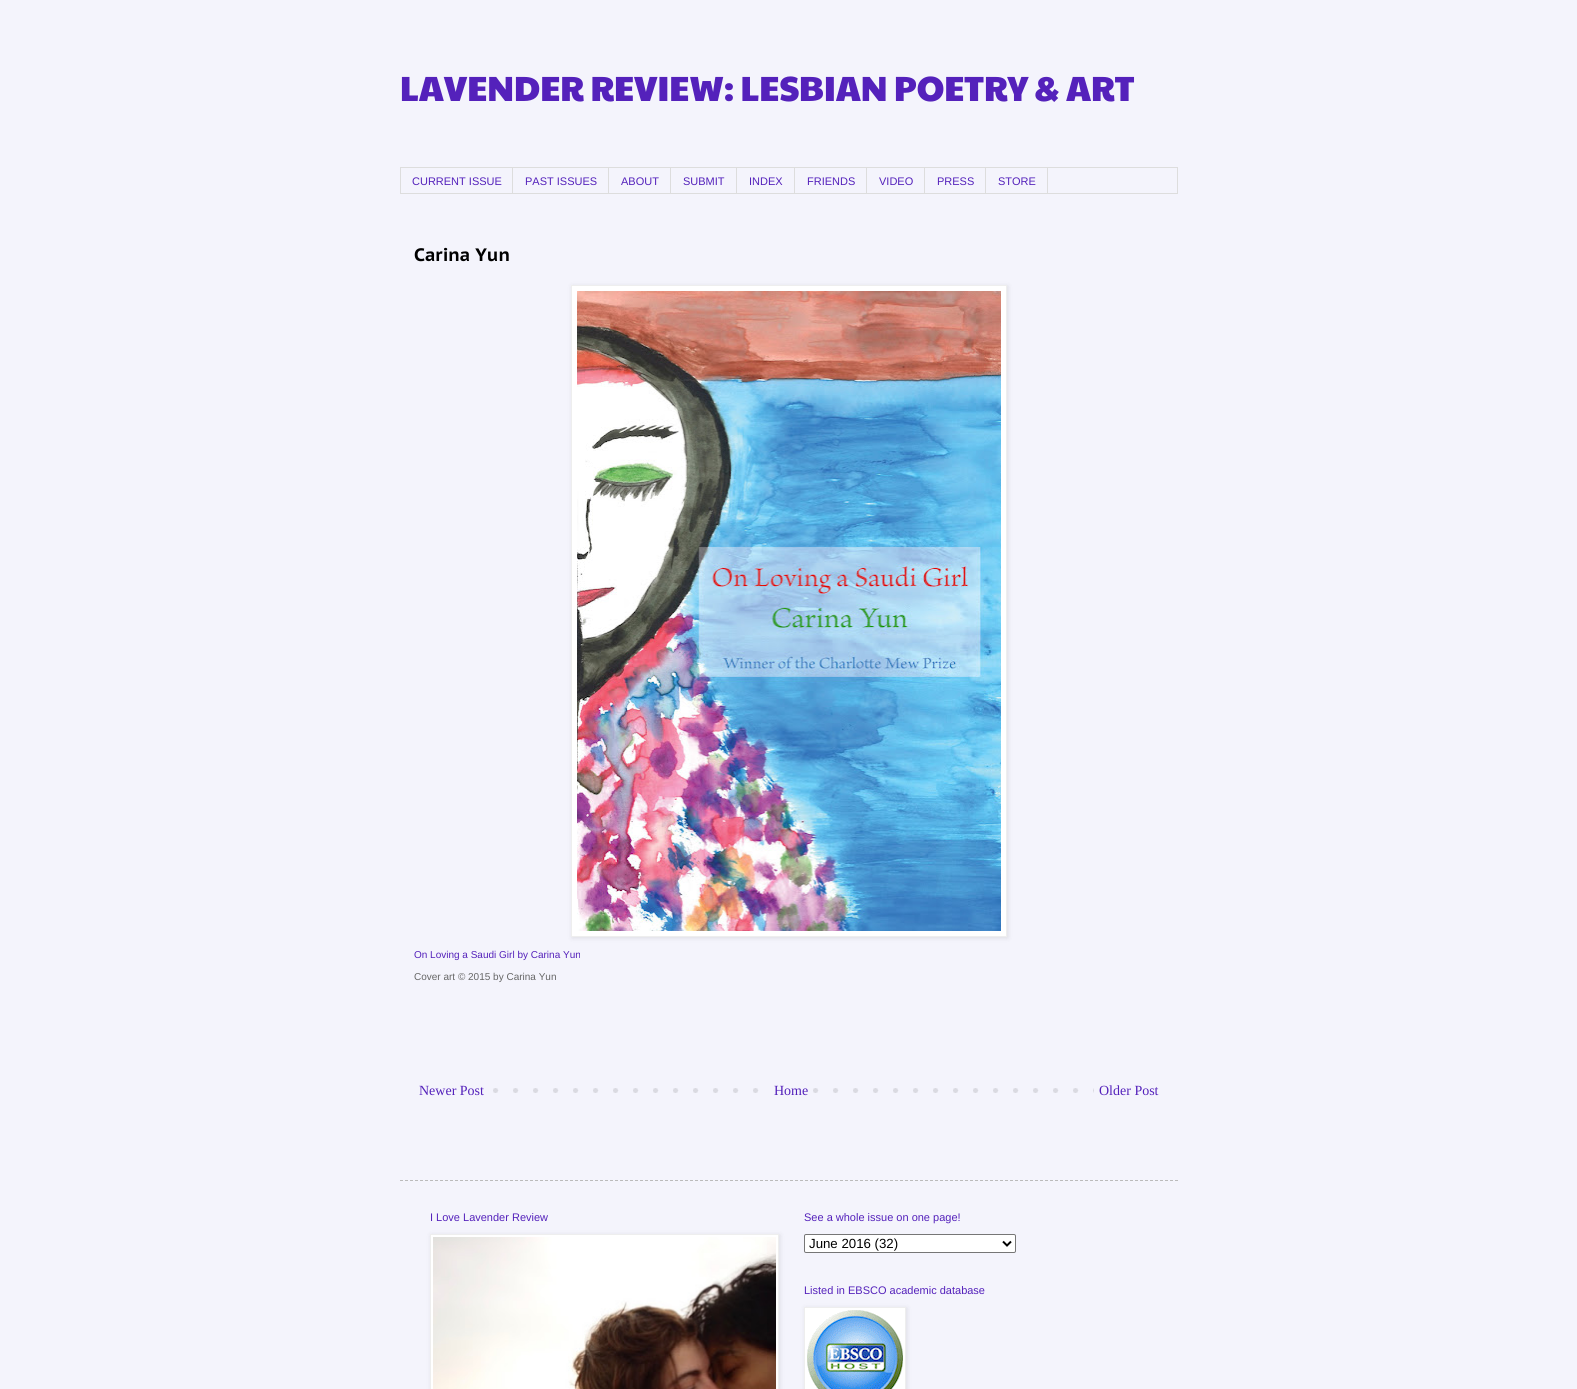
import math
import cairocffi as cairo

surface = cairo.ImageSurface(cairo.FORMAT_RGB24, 1577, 1389)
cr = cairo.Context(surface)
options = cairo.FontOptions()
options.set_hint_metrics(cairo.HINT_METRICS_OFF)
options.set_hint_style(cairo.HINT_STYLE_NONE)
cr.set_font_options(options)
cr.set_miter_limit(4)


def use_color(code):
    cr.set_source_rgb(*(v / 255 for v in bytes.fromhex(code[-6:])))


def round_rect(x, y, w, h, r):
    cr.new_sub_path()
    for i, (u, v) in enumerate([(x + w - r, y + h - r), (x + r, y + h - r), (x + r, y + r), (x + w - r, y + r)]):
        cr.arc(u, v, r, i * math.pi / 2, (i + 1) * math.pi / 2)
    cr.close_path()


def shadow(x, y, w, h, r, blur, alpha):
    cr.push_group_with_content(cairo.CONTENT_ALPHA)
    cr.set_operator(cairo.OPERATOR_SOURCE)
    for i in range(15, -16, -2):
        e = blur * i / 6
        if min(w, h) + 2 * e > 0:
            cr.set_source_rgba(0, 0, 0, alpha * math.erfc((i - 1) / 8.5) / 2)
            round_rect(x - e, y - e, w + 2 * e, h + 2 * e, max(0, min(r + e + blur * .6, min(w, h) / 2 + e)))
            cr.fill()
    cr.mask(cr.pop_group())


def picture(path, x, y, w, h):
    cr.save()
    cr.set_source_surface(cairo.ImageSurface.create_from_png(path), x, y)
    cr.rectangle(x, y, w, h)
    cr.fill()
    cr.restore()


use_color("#f4f4fc")
cr.paint()
cr.select_font_face("Paytone One")
cr.set_font_size(35)
use_color("#5421bb")
cr.move_to(400, 101)
cr.show_text("LAVENDER REVIEW: LESBIAN POETRY & ART")
cr.rectangle(400.5, 167.5, 777, 26)
use_color("#dddddd")
cr.set_line_width(1)
cr.stroke()
cr.rectangle(512, 168, 1, 25)
cr.fill()
cr.select_font_face("Liberation Sans")
cr.set_font_size(11)
use_color("#5421bb")
cr.move_to(412, 185)
cr.show_text("CURRENT ISSUE")
use_color("#dddddd")
cr.rectangle(608, 168, 1, 25)
cr.fill()
use_color("#5421bb")
cr.move_to(525, 185)
cr.show_text("PAST ISSUES")
use_color("#dddddd")
cr.rectangle(670, 168, 1, 25)
cr.fill()
use_color("#5421bb")
cr.move_to(621, 185)
cr.show_text("ABOUT")
use_color("#dddddd")
cr.rectangle(736, 168, 1, 25)
cr.fill()
use_color("#5421bb")
cr.move_to(683, 185)
cr.show_text("SUBMIT")
use_color("#dddddd")
cr.rectangle(794, 168, 1, 25)
cr.fill()
use_color("#5421bb")
cr.move_to(749, 185)
cr.show_text("INDEX")
use_color("#dddddd")
cr.rectangle(866, 168, 1, 25)
cr.fill()
use_color("#5421bb")
cr.move_to(807, 185)
cr.show_text("FRIENDS")
use_color("#dddddd")
cr.rectangle(924, 168, 1, 25)
cr.fill()
use_color("#5421bb")
cr.move_to(879, 185)
cr.show_text("VIDEO")
use_color("#dddddd")
cr.rectangle(985, 168, 1, 25)
cr.fill()
use_color("#5421bb")
cr.move_to(937, 185)
cr.show_text("PRESS")
use_color("#dddddd")
cr.rectangle(1047, 168, 1, 25)
cr.fill()
use_color("#5421bb")
cr.move_to(998, 185)
cr.show_text("STORE")
cr.select_font_face("PT Sans Caption", cairo.FONT_SLANT_NORMAL, cairo.FONT_WEIGHT_BOLD)
cr.set_font_size(18)
use_color("#000000")
cr.move_to(414, 261)
cr.show_text("Carina Yun")
use_color("#000000")
shadow(572, 286, 436, 652, 0, 2.5, 0.1)
use_color("#ffffff")
cr.rectangle(571.5, 285.5, 435, 651)
cr.fill_preserve()
use_color("#eeeeee")
cr.stroke()
picture("img1.png", 577, 291, 424, 640)
cr.select_font_face("Liberation Sans")
cr.set_font_size(10)
use_color("#5421bb")
cr.move_to(414, 958)
cr.show_text("On Loving a Saudi Girl by Carina Yun")
use_color("#666666")
cr.move_to(414, 980)
cr.show_text("Cover art © 2015 by Carina Yun")
picture("img2.png", 493, 1088, 601, 5)
cr.select_font_face("Liberation Serif")
cr.set_font_size(14)
use_color("#5421bb")
cr.move_to(419, 1095)
cr.show_text("Newer Post")
use_color("#f4f4fc")
cr.rectangle(773, 1088, 26, 5)
cr.fill()
use_color("#5421bb")
cr.move_to(774, 1095)
cr.show_text("Home")
cr.move_to(1099, 1095)
cr.show_text("Older Post")
cr.new_path()
cr.move_to(400, 1180.5)
cr.line_to(1178, 1180.5)
use_color("#bbbbbb")
cr.set_dash([3, 2])
cr.stroke()
cr.select_font_face("Liberation Sans")
cr.set_font_size(11)
use_color("#5421bb")
cr.move_to(430, 1221)
cr.show_text("I Love Lavender Review")
use_color("#000000")
shadow(431, 1235, 349, 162, 0, 2.5, 0.1)
use_color("#ffffff")
cr.rectangle(430.5, 1234.5, 348, 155)
cr.fill_preserve()
use_color("#eeeeee")
cr.set_dash([])
cr.stroke()
picture("img3.png", 433, 1237, 343, 152)
use_color("#5421bb")
cr.move_to(804, 1221)
cr.show_text("See a whole issue on one page!")
use_color("#ffffff")
round_rect(804.5, 1234.5, 211, 18, 1.5)
cr.fill_preserve()
use_color("#767676")
cr.stroke()
cr.new_path()
cr.move_to(1003, 1241.5)
cr.line_to(1007, 1245.5)
cr.line_to(1011, 1241.5)
use_color("#000000")
cr.set_line_width(2)
cr.stroke()
cr.set_font_size(13.25)
cr.move_to(809, 1248)
cr.show_text("June 2016 (32)")
cr.set_font_size(11)
use_color("#5421bb")
cr.move_to(804, 1294)
cr.show_text("Listed in EBSCO academic database")
use_color("#000000")
shadow(805, 1308, 102, 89, 0, 2.5, 0.1)
use_color("#ffffff")
cr.rectangle(804.5, 1307.5, 101, 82)
cr.fill_preserve()
use_color("#eeeeee")
cr.set_line_width(1)
cr.stroke()
picture("img4.png", 807, 1310, 96, 79)
surface.write_to_png("result.png")
